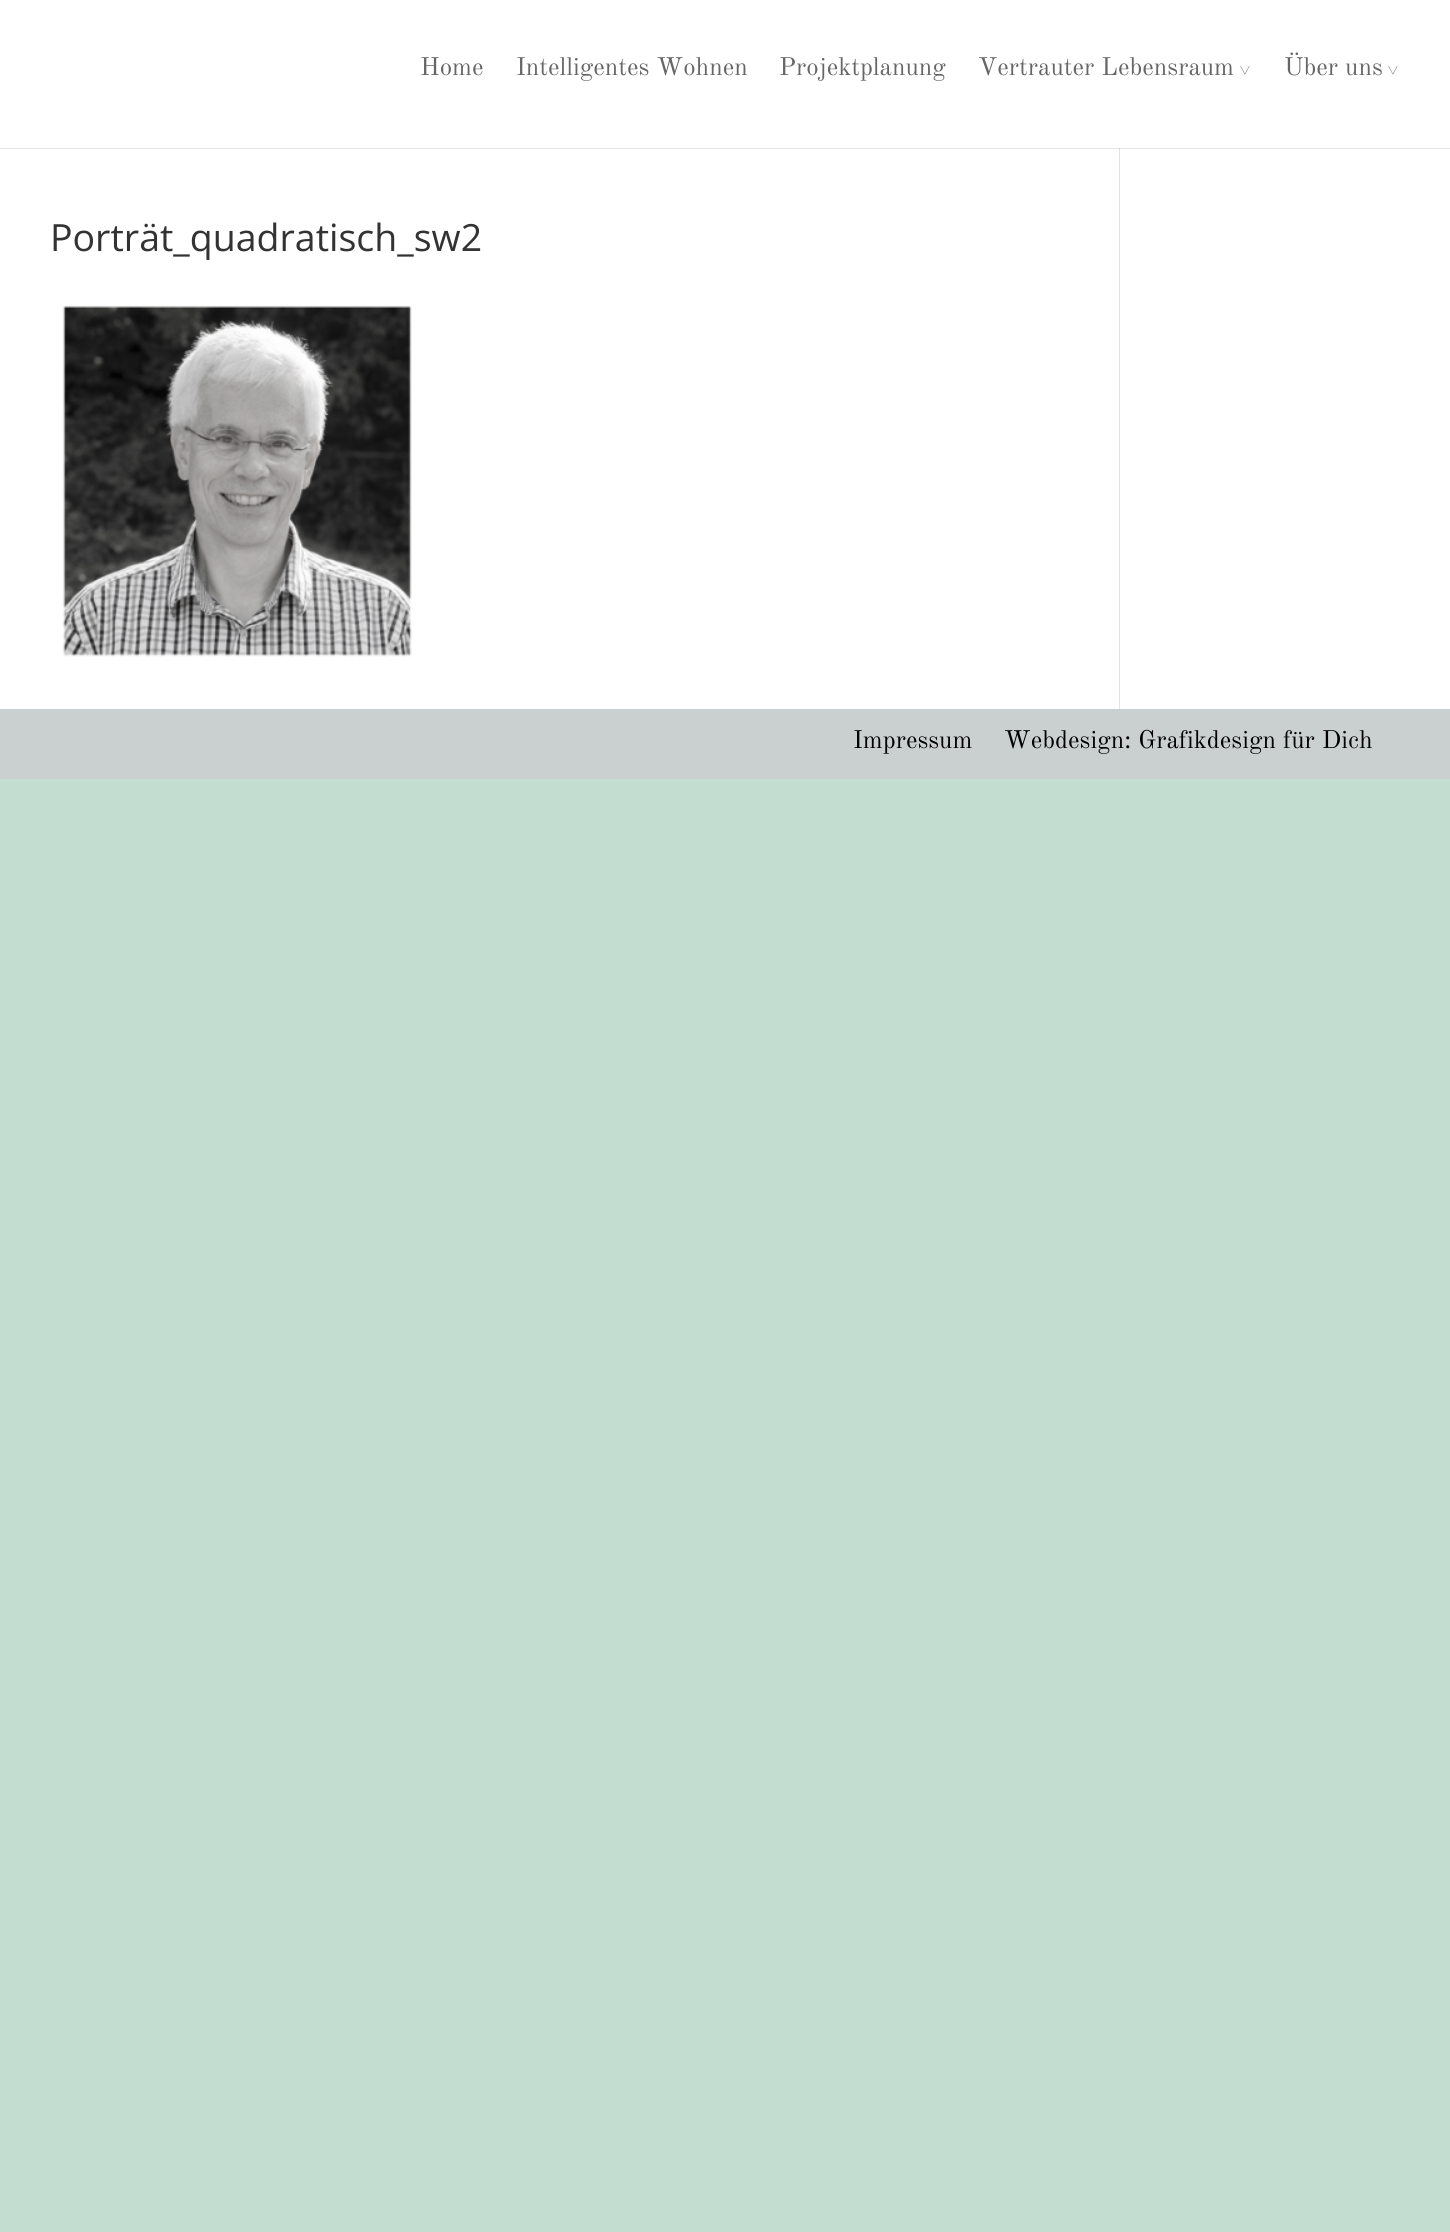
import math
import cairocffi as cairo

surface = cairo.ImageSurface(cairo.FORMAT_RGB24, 1450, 2232)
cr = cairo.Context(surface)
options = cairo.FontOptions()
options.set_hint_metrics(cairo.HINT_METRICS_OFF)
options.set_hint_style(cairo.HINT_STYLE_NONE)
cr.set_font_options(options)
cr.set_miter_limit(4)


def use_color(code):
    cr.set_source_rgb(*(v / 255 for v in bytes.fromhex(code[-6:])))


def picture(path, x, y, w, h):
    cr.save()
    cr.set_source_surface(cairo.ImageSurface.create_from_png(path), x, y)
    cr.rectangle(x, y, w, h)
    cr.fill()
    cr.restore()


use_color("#c3ddd1")
cr.paint()
use_color("#ffffff")
cr.rectangle(0, 149, 1450, 560)
cr.fill()
use_color("#e6e6e6")
cr.rectangle(0, 148, 1450, 1)
cr.fill()
use_color("#e2e2e2")
cr.rectangle(1119, 146, 1, 563)
cr.fill()
use_color("#ffffff")
cr.rectangle(0, 0, 1450, 148)
cr.fill()
cr.select_font_face("Old Standard TT")
cr.set_font_size(25)
use_color("#666666")
cr.move_to(420, 75)
cr.show_text("Home")
cr.move_to(516, 75)
cr.show_text("Intelligentes Wohnen")
cr.move_to(779, 75)
cr.show_text("Projektplanung")
cr.move_to(978, 75)
cr.show_text("Vertrauter Lebensraum")
cr.set_font_size(11)
cr.save()
cr.translate(1242, 65)
cr.rotate(90 * math.pi / 180)
cr.move_to(0, 0)
cr.show_text(">")
cr.restore()
cr.set_font_size(25)
cr.move_to(1284, 75)
cr.show_text("Über uns")
cr.set_font_size(11)
cr.save()
cr.translate(1390, 65)
cr.rotate(90 * math.pi / 180)
cr.move_to(0, 0)
cr.show_text(">")
cr.restore()
cr.select_font_face("Open Sans")
cr.set_font_size(37.5)
use_color("#333333")
cr.move_to(50, 251)
cr.show_text("Porträt_quadratisch_sw2")
picture("img1.png", 62, 305, 350, 352)
use_color("#cbcbcb")
cr.rectangle(1119, 148, 1, 1)
cr.fill()
use_color("#c9d0cf")
cr.rectangle(0, 709, 1450, 70)
cr.fill()
cr.select_font_face("Old Standard TT")
cr.set_font_size(25)
use_color("#000000")
cr.move_to(853, 748)
cr.show_text("Impressum")
cr.move_to(1004, 748)
cr.show_text("Webdesign: Grafikdesign für Dich")
surface.write_to_png("result.png")
